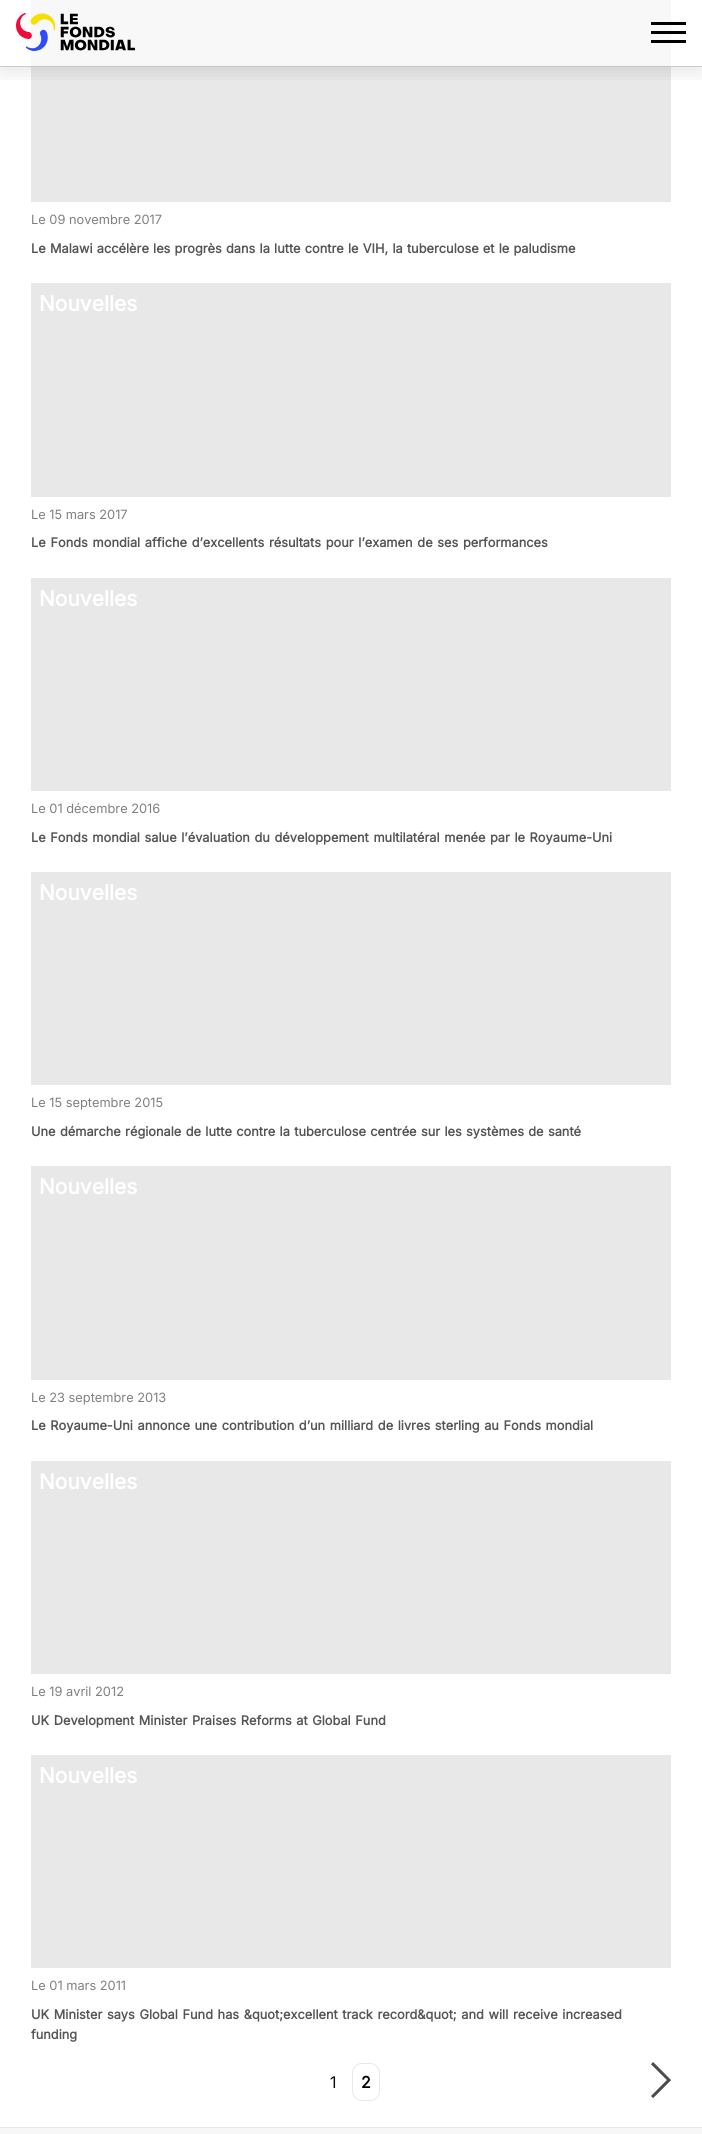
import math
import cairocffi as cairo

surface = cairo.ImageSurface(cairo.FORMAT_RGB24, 702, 2134)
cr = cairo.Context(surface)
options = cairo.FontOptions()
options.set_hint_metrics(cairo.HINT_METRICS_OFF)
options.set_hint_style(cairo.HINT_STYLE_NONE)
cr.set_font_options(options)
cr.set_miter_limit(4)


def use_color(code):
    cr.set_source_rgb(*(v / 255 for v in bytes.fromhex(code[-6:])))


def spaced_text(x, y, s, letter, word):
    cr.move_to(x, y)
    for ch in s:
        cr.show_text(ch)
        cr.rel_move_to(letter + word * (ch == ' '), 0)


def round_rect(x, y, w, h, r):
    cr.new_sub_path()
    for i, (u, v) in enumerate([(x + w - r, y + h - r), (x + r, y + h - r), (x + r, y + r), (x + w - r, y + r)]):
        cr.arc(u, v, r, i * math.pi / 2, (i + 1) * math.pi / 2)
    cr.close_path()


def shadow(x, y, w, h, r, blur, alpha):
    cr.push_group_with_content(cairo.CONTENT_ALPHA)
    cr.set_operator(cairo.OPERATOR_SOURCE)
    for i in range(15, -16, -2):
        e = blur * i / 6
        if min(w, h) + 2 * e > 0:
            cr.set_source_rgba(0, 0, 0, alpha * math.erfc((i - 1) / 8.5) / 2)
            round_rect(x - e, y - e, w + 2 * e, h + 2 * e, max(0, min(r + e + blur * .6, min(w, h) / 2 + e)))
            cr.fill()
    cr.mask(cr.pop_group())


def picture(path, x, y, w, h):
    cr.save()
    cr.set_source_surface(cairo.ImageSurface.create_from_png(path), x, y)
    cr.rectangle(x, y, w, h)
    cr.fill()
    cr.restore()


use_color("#ffffff")
cr.paint()
use_color("#cccccc")
cr.rectangle(0, 66, 702, 1)
cr.fill()
use_color("#e8e8e8")
cr.rectangle(31, 67, 640, 135)
cr.fill()
use_color("#f8f8f8")
cr.rectangle(31, 0, 640, 66)
cr.fill()
use_color("#c6c6c6")
cr.rectangle(31, 66, 640, 1)
cr.fill()
cr.save()
cr.rectangle(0, 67, 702, 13)
cr.clip()
use_color("#000000")
shadow(0, 5, 702, 67, 0, 10, 0.1)
cr.restore()
picture("img1.png", 16, 13, 119, 38)
use_color("#000000")
cr.rectangle(651, 22, 35, 3)
cr.fill()
cr.rectangle(651, 31, 35, 3)
cr.fill()
cr.rectangle(651, 40, 35, 3)
cr.fill()
cr.select_font_face("Inter")
cr.set_font_size(12.8)
use_color("#808080")
cr.move_to(31, 224)
cr.show_text("Le 09 novembre 2017")
cr.select_font_face("Inter", cairo.FONT_SLANT_NORMAL, cairo.FONT_WEIGHT_BOLD)
use_color("#555555")
spaced_text(31, 253, "Le Malawi accélère les progrès dans la lutte contre le VIH, la tuberculose et le paludisme", 0, 0.6)
use_color("#e8e8e8")
cr.rectangle(31, 283, 640, 214)
cr.fill()
cr.set_font_size(21)
use_color("#ffffff")
cr.move_to(39, 311)
cr.show_text("Nouvelles")
cr.select_font_face("Inter")
cr.set_font_size(12.8)
use_color("#808080")
cr.move_to(31, 519)
cr.show_text("Le 15 mars 2017")
cr.select_font_face("Inter", cairo.FONT_SLANT_NORMAL, cairo.FONT_WEIGHT_BOLD)
use_color("#555555")
spaced_text(31, 547, "Le Fonds mondial affiche d’excellents résultats pour l’examen de ses performances", 0, 1.1)
use_color("#e8e8e8")
cr.rectangle(31, 578, 640, 213)
cr.fill()
cr.set_font_size(21)
use_color("#ffffff")
cr.move_to(39, 606)
cr.show_text("Nouvelles")
cr.select_font_face("Inter")
cr.set_font_size(12.8)
use_color("#808080")
cr.move_to(31, 813)
cr.show_text("Le 01 décembre 2016")
cr.select_font_face("Inter", cairo.FONT_SLANT_NORMAL, cairo.FONT_WEIGHT_BOLD)
use_color("#555555")
spaced_text(31, 842, "Le Fonds mondial salue l’évaluation du développement multilatéral menée par le Royaume-Uni", 0, 1)
use_color("#e8e8e8")
cr.rectangle(31, 872, 640, 213)
cr.fill()
cr.set_font_size(21)
use_color("#ffffff")
cr.move_to(39, 900)
cr.show_text("Nouvelles")
cr.select_font_face("Inter")
cr.set_font_size(12.8)
use_color("#808080")
cr.move_to(31, 1107)
cr.show_text("Le 15 septembre 2015")
cr.select_font_face("Inter", cairo.FONT_SLANT_NORMAL, cairo.FONT_WEIGHT_BOLD)
use_color("#555555")
spaced_text(31, 1136, "Une démarche régionale de lutte contre la tuberculose centrée sur les systèmes de santé", 0, 0.75)
use_color("#e8e8e8")
cr.rectangle(31, 1166, 640, 214)
cr.fill()
cr.set_font_size(21)
use_color("#ffffff")
cr.move_to(39, 1194)
cr.show_text("Nouvelles")
cr.select_font_face("Inter")
cr.set_font_size(12.8)
use_color("#808080")
cr.move_to(31, 1402)
cr.show_text("Le 23 septembre 2013")
cr.select_font_face("Inter", cairo.FONT_SLANT_NORMAL, cairo.FONT_WEIGHT_BOLD)
use_color("#555555")
spaced_text(31, 1430, "Le Royaume-Uni annonce une contribution d’un milliard de livres sterling au Fonds mondial", 0, 1)
use_color("#e8e8e8")
cr.rectangle(31, 1461, 640, 213)
cr.fill()
cr.set_font_size(21)
use_color("#ffffff")
cr.move_to(39, 1489)
cr.show_text("Nouvelles")
cr.select_font_face("Inter")
cr.set_font_size(12.8)
use_color("#808080")
cr.move_to(31, 1696)
cr.show_text("Le 19 avril 2012")
cr.select_font_face("Inter", cairo.FONT_SLANT_NORMAL, cairo.FONT_WEIGHT_BOLD)
use_color("#555555")
spaced_text(31, 1725, "UK Development Minister Praises Reforms at Global Fund", 0, 1)
use_color("#e8e8e8")
cr.rectangle(31, 1755, 640, 213)
cr.fill()
cr.set_font_size(21)
use_color("#ffffff")
cr.move_to(39, 1783)
cr.show_text("Nouvelles")
cr.select_font_face("Inter")
cr.set_font_size(12.8)
use_color("#808080")
cr.move_to(31, 1990)
cr.show_text("Le 01 mars 2011")
cr.select_font_face("Inter", cairo.FONT_SLANT_NORMAL, cairo.FONT_WEIGHT_BOLD)
use_color("#555555")
spaced_text(31, 2019, "UK Minister says Global Fund has &quot;excellent track record&quot; and will receive increased", 0, 1)
cr.move_to(31, 2039)
cr.show_text("funding")
cr.select_font_face("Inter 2")
cr.set_font_size(16)
use_color("#0a0a0a")
cr.move_to(330, 2088)
cr.show_text("1")
round_rect(352.5, 2063.5, 27, 37, 9.5)
use_color("#e8e8e8")
cr.set_line_width(1)
cr.stroke()
cr.select_font_face("Inter", cairo.FONT_SLANT_NORMAL, cairo.FONT_WEIGHT_BOLD)
use_color("#000000")
cr.move_to(361, 2088)
cr.show_text("2")
picture("img2.png", 651, 2062, 20, 36)
use_color("#f7f7f7")
cr.rectangle(0, 2128, 702, 6)
cr.fill()
use_color("#e8e8e8")
cr.rectangle(0, 2127, 702, 1)
cr.fill()
surface.write_to_png("result.png")
